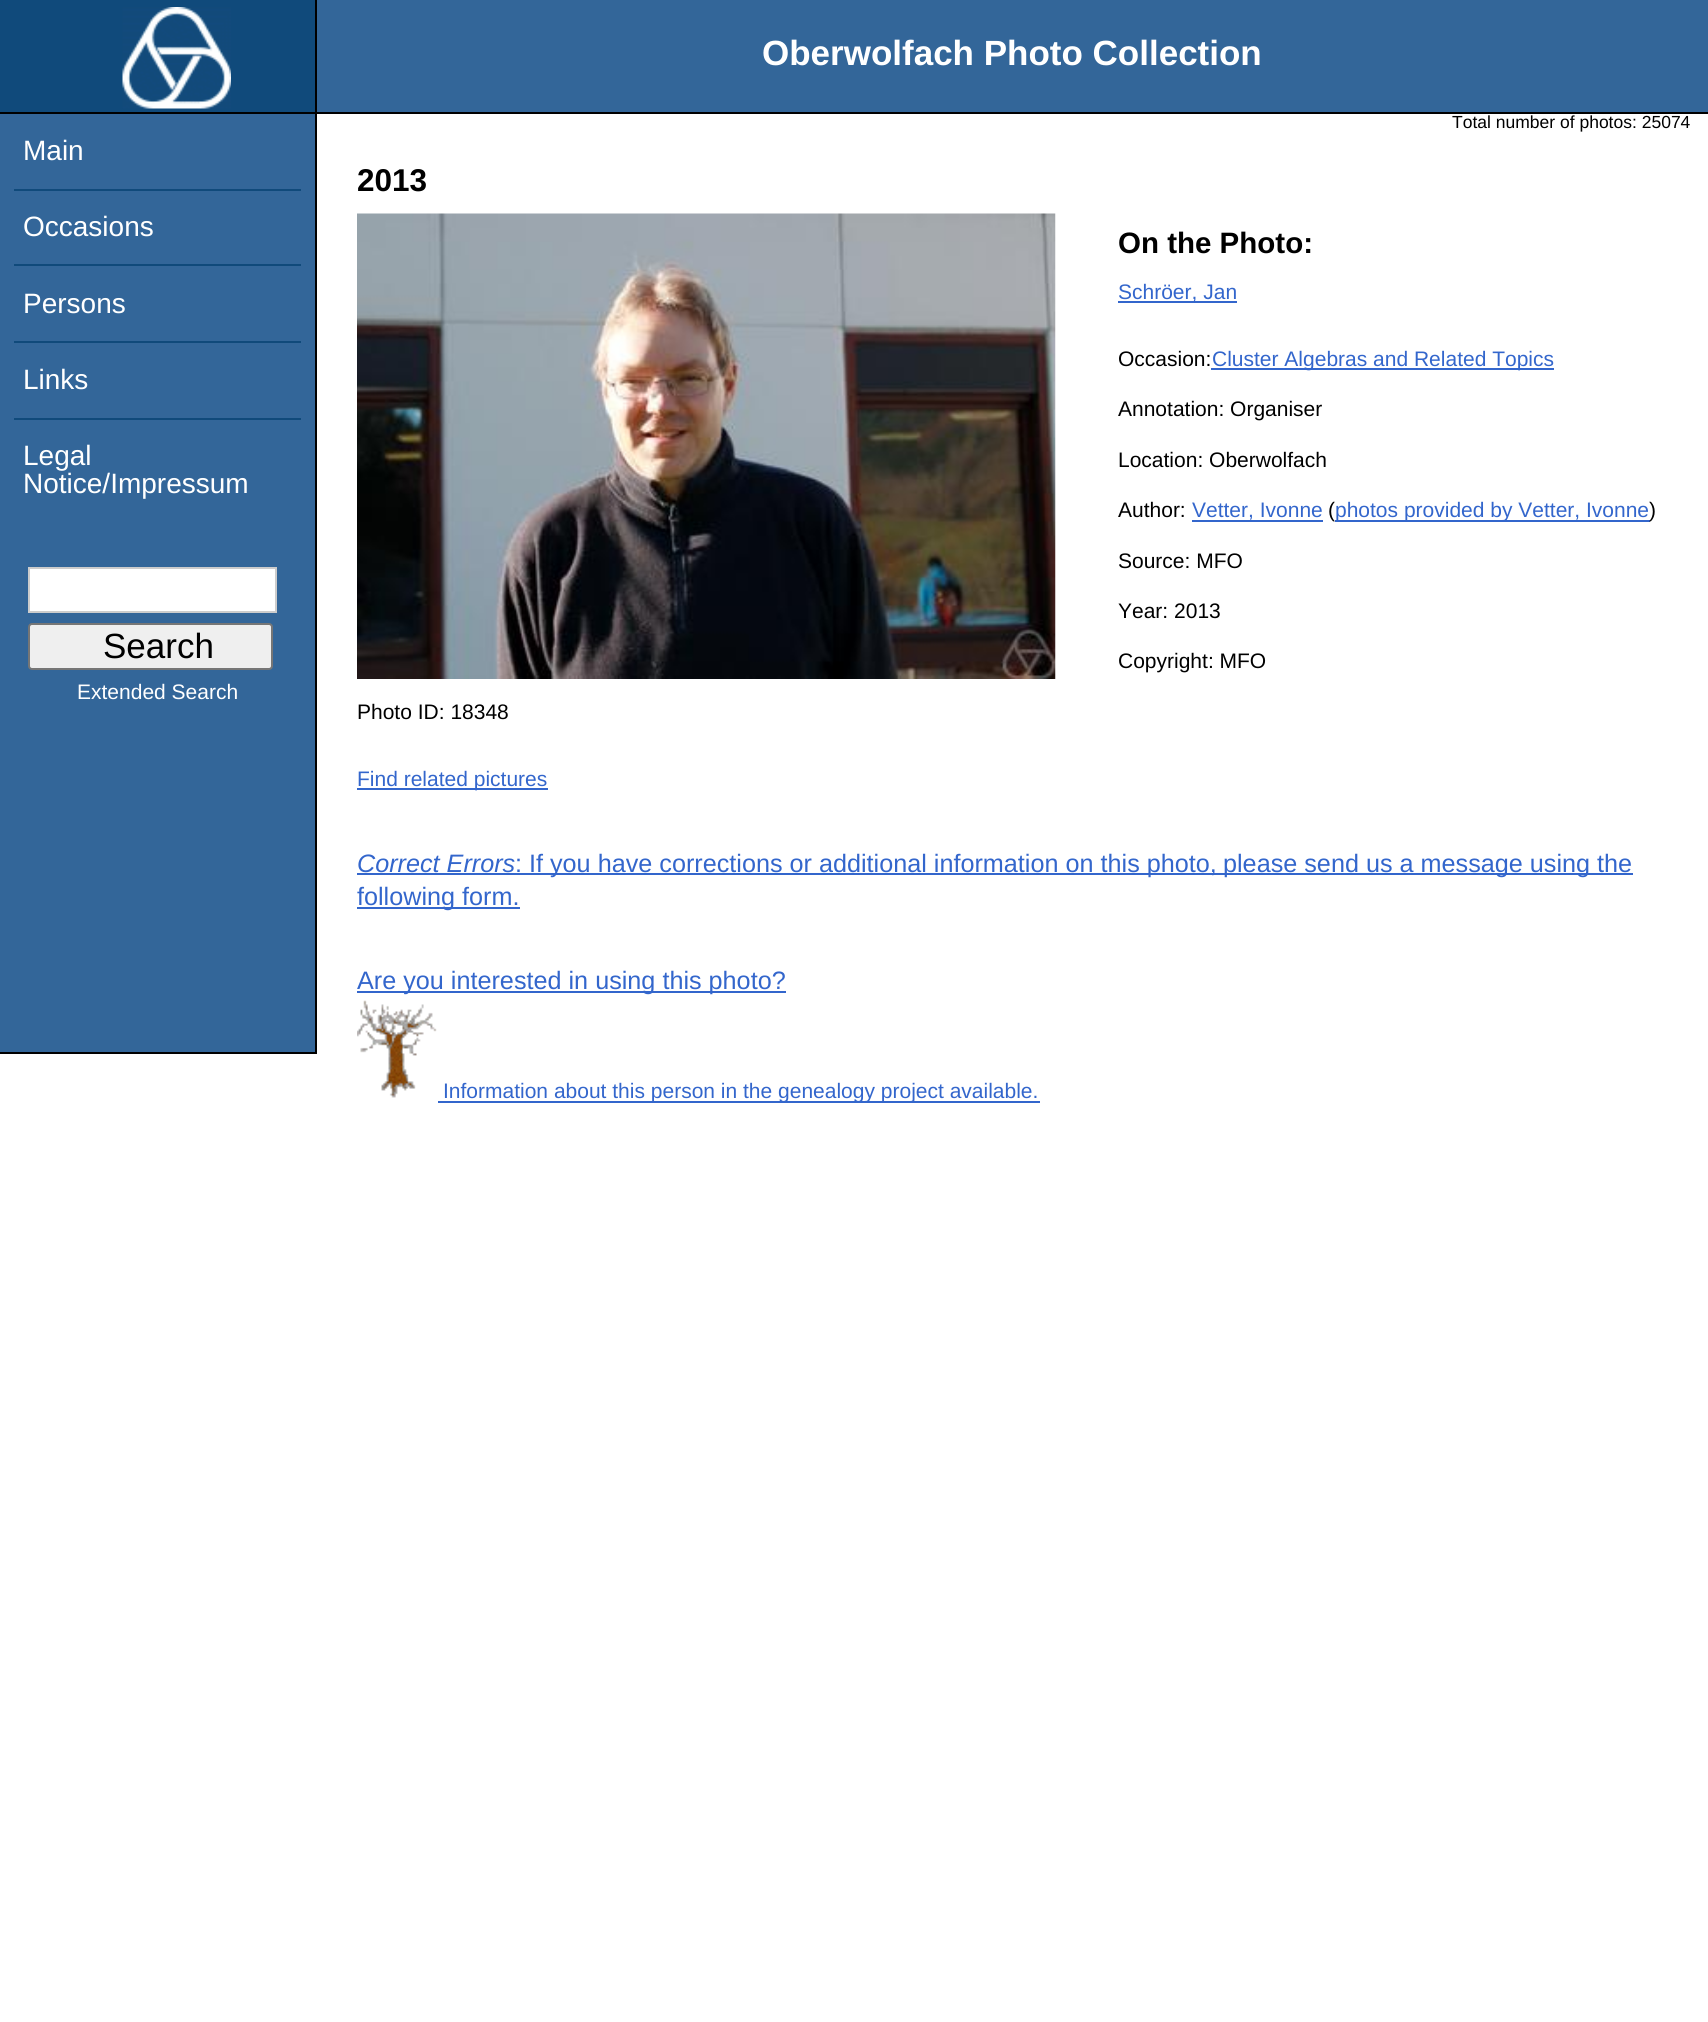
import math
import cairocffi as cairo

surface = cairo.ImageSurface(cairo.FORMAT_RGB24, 1708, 2022)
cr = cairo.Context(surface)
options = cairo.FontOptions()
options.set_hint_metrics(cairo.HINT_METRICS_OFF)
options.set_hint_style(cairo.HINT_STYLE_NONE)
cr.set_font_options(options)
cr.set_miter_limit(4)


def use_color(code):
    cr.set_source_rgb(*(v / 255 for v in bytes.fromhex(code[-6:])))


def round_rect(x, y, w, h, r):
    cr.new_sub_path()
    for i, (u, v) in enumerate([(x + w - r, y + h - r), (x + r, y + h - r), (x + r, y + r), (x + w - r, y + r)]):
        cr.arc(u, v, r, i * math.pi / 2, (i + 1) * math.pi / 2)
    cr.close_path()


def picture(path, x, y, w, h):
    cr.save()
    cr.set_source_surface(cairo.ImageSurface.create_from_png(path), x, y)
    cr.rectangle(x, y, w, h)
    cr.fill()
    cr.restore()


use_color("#ffffff")
cr.paint()
use_color("#336699")
cr.rectangle(317, 0, 1391, 112)
cr.fill()
use_color("#000000")
cr.rectangle(0, 112, 1708, 2)
cr.fill()
use_color("#104a7b")
cr.rectangle(0, 0, 315, 112)
cr.fill()
use_color("#000000")
cr.rectangle(315, 0, 2, 112)
cr.fill()
picture("img1.png", 122, 7, 109, 102)
cr.select_font_face("Liberation Sans", cairo.FONT_SLANT_NORMAL, cairo.FONT_WEIGHT_BOLD)
cr.set_font_size(35)
use_color("#ffffff")
cr.move_to(762, 65)
cr.show_text("Oberwolfach Photo Collection")
cr.select_font_face("Liberation Sans")
cr.set_font_size(17.5)
use_color("#000000")
cr.move_to(1452, 128)
cr.show_text("Total number of photos: 25074")
use_color("#336699")
cr.rectangle(0, 114, 315, 938)
cr.fill()
use_color("#000000")
cr.rectangle(315, 114, 2, 940)
cr.fill()
cr.rectangle(0, 1052, 317, 2)
cr.fill()
cr.set_font_size(28)
use_color("#ffffff")
cr.move_to(23, 160)
cr.show_text("Main")
use_color("#104a7b")
cr.rectangle(14, 189, 287, 2)
cr.fill()
use_color("#ffffff")
cr.move_to(23, 236)
cr.show_text("Occasions")
use_color("#104a7b")
cr.rectangle(14, 264, 287, 2)
cr.fill()
use_color("#ffffff")
cr.move_to(23, 313)
cr.show_text("Persons")
use_color("#104a7b")
cr.rectangle(14, 341, 287, 2)
cr.fill()
use_color("#ffffff")
cr.move_to(23, 389)
cr.show_text("Links")
use_color("#104a7b")
cr.rectangle(14, 418, 287, 2)
cr.fill()
use_color("#ffffff")
cr.move_to(23, 465)
cr.show_text("Legal")
cr.move_to(23, 493)
cr.show_text("Notice/Impressum")
cr.rectangle(29, 568, 247, 44)
cr.fill_preserve()
use_color("#cccccc")
cr.stroke()
use_color("#efefef")
round_rect(29, 624, 243, 45, 3)
cr.fill_preserve()
use_color("#767676")
cr.stroke()
cr.set_font_size(35)
use_color("#000000")
cr.move_to(103, 658)
cr.show_text("Search")
cr.set_font_size(21)
use_color("#ffffff")
cr.move_to(77, 699)
cr.show_text("Extended Search")
cr.select_font_face("Liberation Sans", cairo.FONT_SLANT_NORMAL, cairo.FONT_WEIGHT_BOLD)
cr.set_font_size(31.5)
use_color("#000000")
cr.move_to(357, 191)
cr.show_text("2013")
picture("img2.png", 357, 213, 699, 466)
cr.set_font_size(29.5)
cr.move_to(1118, 253)
cr.show_text("On the Photo:")
use_color("#3366cc")
cr.rectangle(1118, 301, 119, 2)
cr.fill()
cr.select_font_face("Liberation Sans")
cr.set_font_size(21)
cr.move_to(1118, 299)
cr.show_text("Schröer, Jan")
use_color("#000000")
cr.move_to(1118, 366)
cr.show_text("Occasion:")
use_color("#3366cc")
cr.rectangle(1211, 368, 343, 2)
cr.fill()
cr.move_to(1212, 366)
cr.show_text("Cluster Algebras and Related Topics")
use_color("#000000")
cr.move_to(1118, 416)
cr.show_text("Annotation: Organiser")
cr.move_to(1118, 467)
cr.show_text("Location: Oberwolfach")
cr.move_to(1118, 517)
cr.show_text("Author:")
use_color("#3366cc")
cr.move_to(1192, 517)
cr.show_text("Vetter, Ivonne")
cr.rectangle(1192, 520, 131, 2)
cr.fill()
use_color("#000000")
cr.move_to(1328, 517)
cr.show_text("(")
use_color("#3366cc")
cr.rectangle(1335, 520, 315, 2)
cr.fill()
cr.move_to(1335, 517)
cr.show_text("photos provided by Vetter, Ivonne")
use_color("#000000")
cr.move_to(1649, 517)
cr.show_text(")")
cr.move_to(1118, 568)
cr.show_text("Source: MFO")
cr.move_to(1118, 618)
cr.show_text("Year: 2013")
cr.move_to(1118, 668)
cr.show_text("Copyright: MFO")
cr.move_to(357, 719)
cr.show_text("Photo ID: 18348")
use_color("#3366cc")
cr.rectangle(357, 788, 191, 2)
cr.fill()
cr.move_to(357, 786)
cr.show_text("Find related pictures")
cr.select_font_face("Liberation Sans", cairo.FONT_SLANT_ITALIC)
cr.set_font_size(25.2)
cr.move_to(357, 872)
cr.show_text("Correct Errors")
cr.rectangle(357, 873, 1276, 2)
cr.fill()
cr.select_font_face("Liberation Sans")
cr.move_to(515, 872)
cr.show_text(": If you have corrections or additional information on this photo,")
cr.move_to(1223, 872)
cr.show_text("please send us a message using the")
cr.rectangle(357, 907, 163, 2)
cr.fill()
cr.move_to(357, 905)
cr.show_text("following form.")
cr.rectangle(357, 991, 429, 2)
cr.fill()
cr.move_to(357, 989)
cr.show_text("Are you interested in using this photo?")
picture("img3.png", 357, 1000, 80, 98)
cr.rectangle(438, 1101, 602, 2)
cr.fill()
cr.set_font_size(21)
cr.move_to(443, 1098)
cr.show_text("Information about this person in the genealogy project available.")
surface.write_to_png("result.png")
